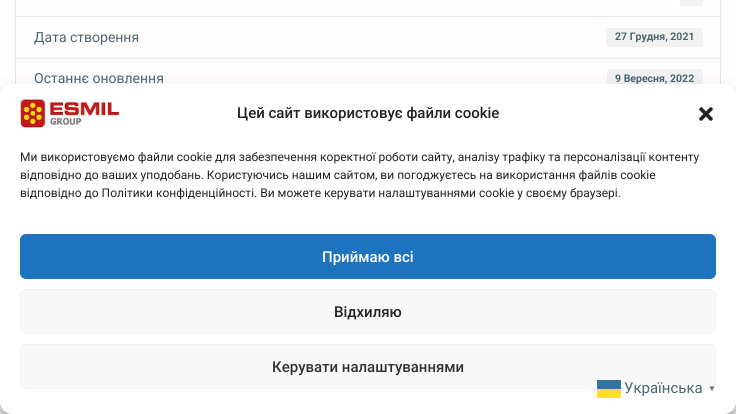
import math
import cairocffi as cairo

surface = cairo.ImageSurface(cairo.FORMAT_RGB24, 736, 414)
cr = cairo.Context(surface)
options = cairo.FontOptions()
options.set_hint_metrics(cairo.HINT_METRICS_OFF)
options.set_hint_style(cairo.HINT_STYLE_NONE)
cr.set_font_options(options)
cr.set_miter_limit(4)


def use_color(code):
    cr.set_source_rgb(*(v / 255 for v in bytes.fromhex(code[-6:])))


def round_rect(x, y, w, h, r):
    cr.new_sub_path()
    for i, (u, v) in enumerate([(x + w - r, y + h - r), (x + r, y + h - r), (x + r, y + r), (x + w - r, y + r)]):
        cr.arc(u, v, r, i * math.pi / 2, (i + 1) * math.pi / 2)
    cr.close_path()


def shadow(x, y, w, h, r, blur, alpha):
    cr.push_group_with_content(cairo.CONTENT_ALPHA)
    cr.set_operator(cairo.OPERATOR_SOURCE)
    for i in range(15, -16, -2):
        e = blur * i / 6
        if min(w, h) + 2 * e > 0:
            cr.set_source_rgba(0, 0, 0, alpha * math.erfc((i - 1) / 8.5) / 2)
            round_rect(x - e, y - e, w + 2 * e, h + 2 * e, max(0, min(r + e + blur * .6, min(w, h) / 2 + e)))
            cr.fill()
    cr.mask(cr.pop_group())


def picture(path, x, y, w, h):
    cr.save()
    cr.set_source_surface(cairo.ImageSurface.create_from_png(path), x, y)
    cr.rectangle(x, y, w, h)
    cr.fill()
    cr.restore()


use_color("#fffdfd")
cr.paint()
cr.rectangle(15.5, -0.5, 705, 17)
use_color("#e5e5e5")
cr.set_line_width(1)
cr.stroke()
use_color("#f2f2f2")
round_rect(680, -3, 23, 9, 3)
cr.fill()
cr.rectangle(15.5, 16.5, 705, 42)
use_color("#e5e5e5")
cr.stroke()
cr.select_font_face("Roboto")
cr.set_font_size(14)
use_color("#4b666e")
cr.move_to(34, 42)
cr.show_text("Дата створення")
use_color("#f2f2f2")
round_rect(606, 28, 97, 19, 3)
cr.fill()
cr.select_font_face("Roboto", cairo.FONT_SLANT_NORMAL, cairo.FONT_WEIGHT_BOLD)
cr.set_font_size(10.5)
use_color("#4b666e")
cr.move_to(615, 40)
cr.show_text("27 Грудня, 2021")
cr.rectangle(15.5, 58.5, 705, 41)
use_color("#e5e5e5")
cr.stroke()
cr.select_font_face("Roboto")
cr.set_font_size(14)
use_color("#4b666e")
cr.move_to(34, 83)
cr.show_text("Останнє оновлення")
use_color("#f2f2f2")
round_rect(607, 69, 96, 20, 3)
cr.fill()
cr.select_font_face("Roboto", cairo.FONT_SLANT_NORMAL, cairo.FONT_WEIGHT_BOLD)
cr.set_font_size(10.5)
use_color("#4b666e")
cr.move_to(615, 82)
cr.show_text("9 Вересня, 2022")
use_color("#000000")
shadow(0, 90, 736, 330, 12, 3, 0.23)
shadow(0, 94, 736, 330, 12, 10, 0.19)
use_color("#ffffff")
round_rect(0, 84, 736, 330, 12)
cr.fill()
picture("img1.png", 20, 99, 100, 29)
cr.select_font_face("Roboto Medium")
cr.set_font_size(15)
use_color("#222222")
cr.move_to(237, 118)
cr.show_text("Цей сайт використовує файли cookie")
picture("img2.png", 699, 107, 14, 14)
cr.select_font_face("Roboto")
cr.set_font_size(12)
cr.move_to(20, 161)
cr.show_text("Ми використовуємо файли cookie для забезпечення коректної роботи сайту, аналізу трафіку та персоналізації контенту")
cr.move_to(20, 179)
cr.show_text("відповідно до ваших уподобань. Користуючись нашим сайтом, ви погоджуєтесь на використання файлів cookie")
cr.move_to(20, 197)
cr.show_text("відповідно до Політики конфіденційності. Ви можете керувати налаштуваннями cookie у своєму браузері.")
use_color("#1e73be")
round_rect(20.5, 234.5, 695, 44, 5.5)
cr.fill_preserve()
cr.stroke()
cr.select_font_face("Roboto Medium")
cr.set_font_size(15)
use_color("#ffffff")
cr.move_to(322, 262)
cr.show_text("Приймаю всі")
use_color("#f9f9f9")
round_rect(20.5, 289.5, 695, 44, 5.5)
cr.fill_preserve()
use_color("#f2f2f2")
cr.stroke()
use_color("#222222")
cr.move_to(334, 317)
cr.show_text("Відхиляю")
use_color("#f9f9f9")
round_rect(20.5, 344.5, 695, 44, 5.5)
cr.fill_preserve()
use_color("#f2f2f2")
cr.stroke()
use_color("#333333")
cr.move_to(272, 372)
cr.show_text("Керувати налаштуваннями")
cr.select_font_face("Roboto")
use_color("#4b666e")
cr.move_to(624, 393)
cr.show_text("Українська")
cr.set_source_rgba(1, 0.835, 0, 0.8)
cr.rectangle(597, 389, 24, 9)
cr.fill()
use_color("#3375a0")
cr.rectangle(597, 380, 24, 9)
cr.fill()
cr.select_font_face("Liberation Sans", cairo.FONT_SLANT_NORMAL, cairo.FONT_WEIGHT_BOLD)
cr.set_font_size(8)
use_color("#666666")
cr.move_to(708, 391)
cr.show_text("▼")
surface.write_to_png("result.png")
